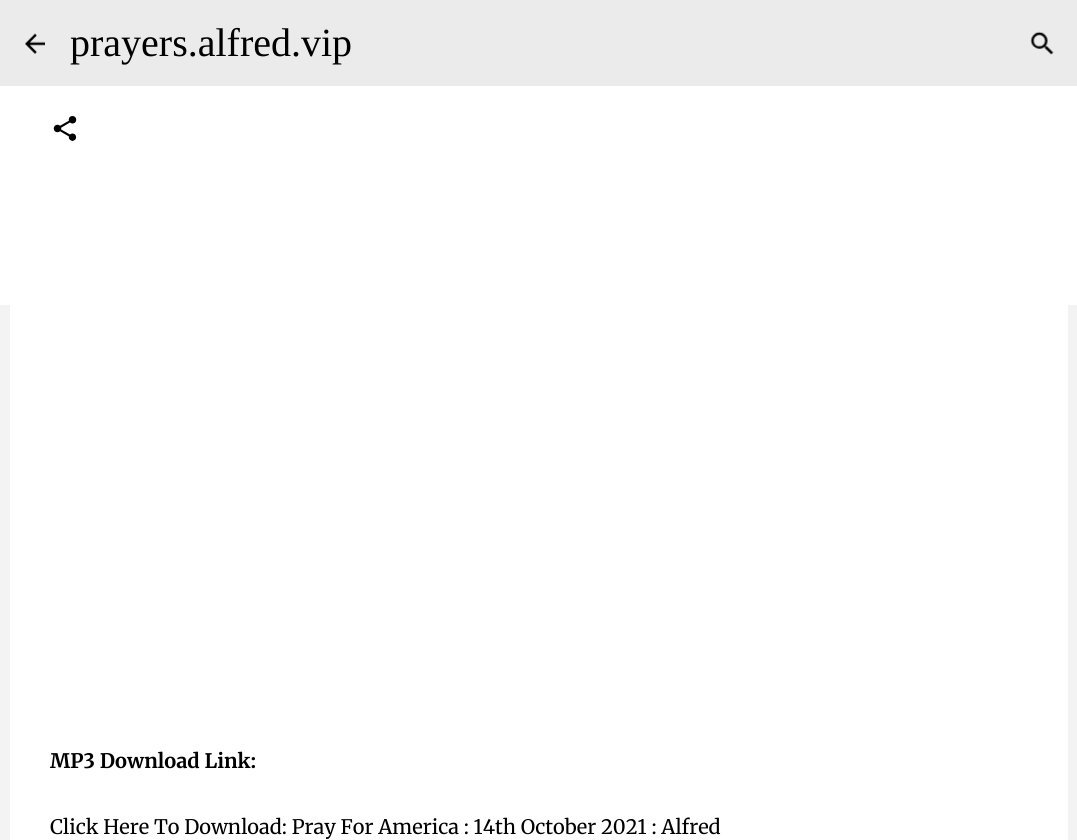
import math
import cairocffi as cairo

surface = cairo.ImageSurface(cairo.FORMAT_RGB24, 1077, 840)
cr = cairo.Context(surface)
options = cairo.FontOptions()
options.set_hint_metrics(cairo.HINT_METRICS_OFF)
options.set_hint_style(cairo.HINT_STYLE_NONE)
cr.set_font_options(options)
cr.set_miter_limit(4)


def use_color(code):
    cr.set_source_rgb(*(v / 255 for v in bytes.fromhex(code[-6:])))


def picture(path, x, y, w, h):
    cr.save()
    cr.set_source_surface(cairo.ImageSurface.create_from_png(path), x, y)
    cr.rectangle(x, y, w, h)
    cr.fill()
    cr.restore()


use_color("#f3f3f3")
cr.paint()
use_color("#ebebeb")
cr.rectangle(0, 0, 1077, 86)
cr.fill()
picture("img1.png", 25, 33, 20, 21)
cr.select_font_face("Liberation Serif")
cr.set_font_size(40)
use_color("#000000")
cr.move_to(70, 56)
cr.show_text("prayers.alfred.vip")
picture("img2.png", 1030, 31, 24, 24)
use_color("#ffffff")
cr.rectangle(0, 86, 1077, 219)
cr.fill()
cr.rectangle(10, 305, 1058, 535)
cr.fill()
picture("img3.png", 53, 116, 24, 25)
cr.select_font_face("Merriweather Light")
cr.set_font_size(20)
use_color("#000000")
cr.move_to(50, 768)
cr.show_text("MP3 Download Link:")
cr.select_font_face("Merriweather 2 Light")
cr.move_to(50, 834)
cr.show_text("Click Here To Download: Pray For America : 14th October 2021 : Alfred")
surface.write_to_png("result.png")
